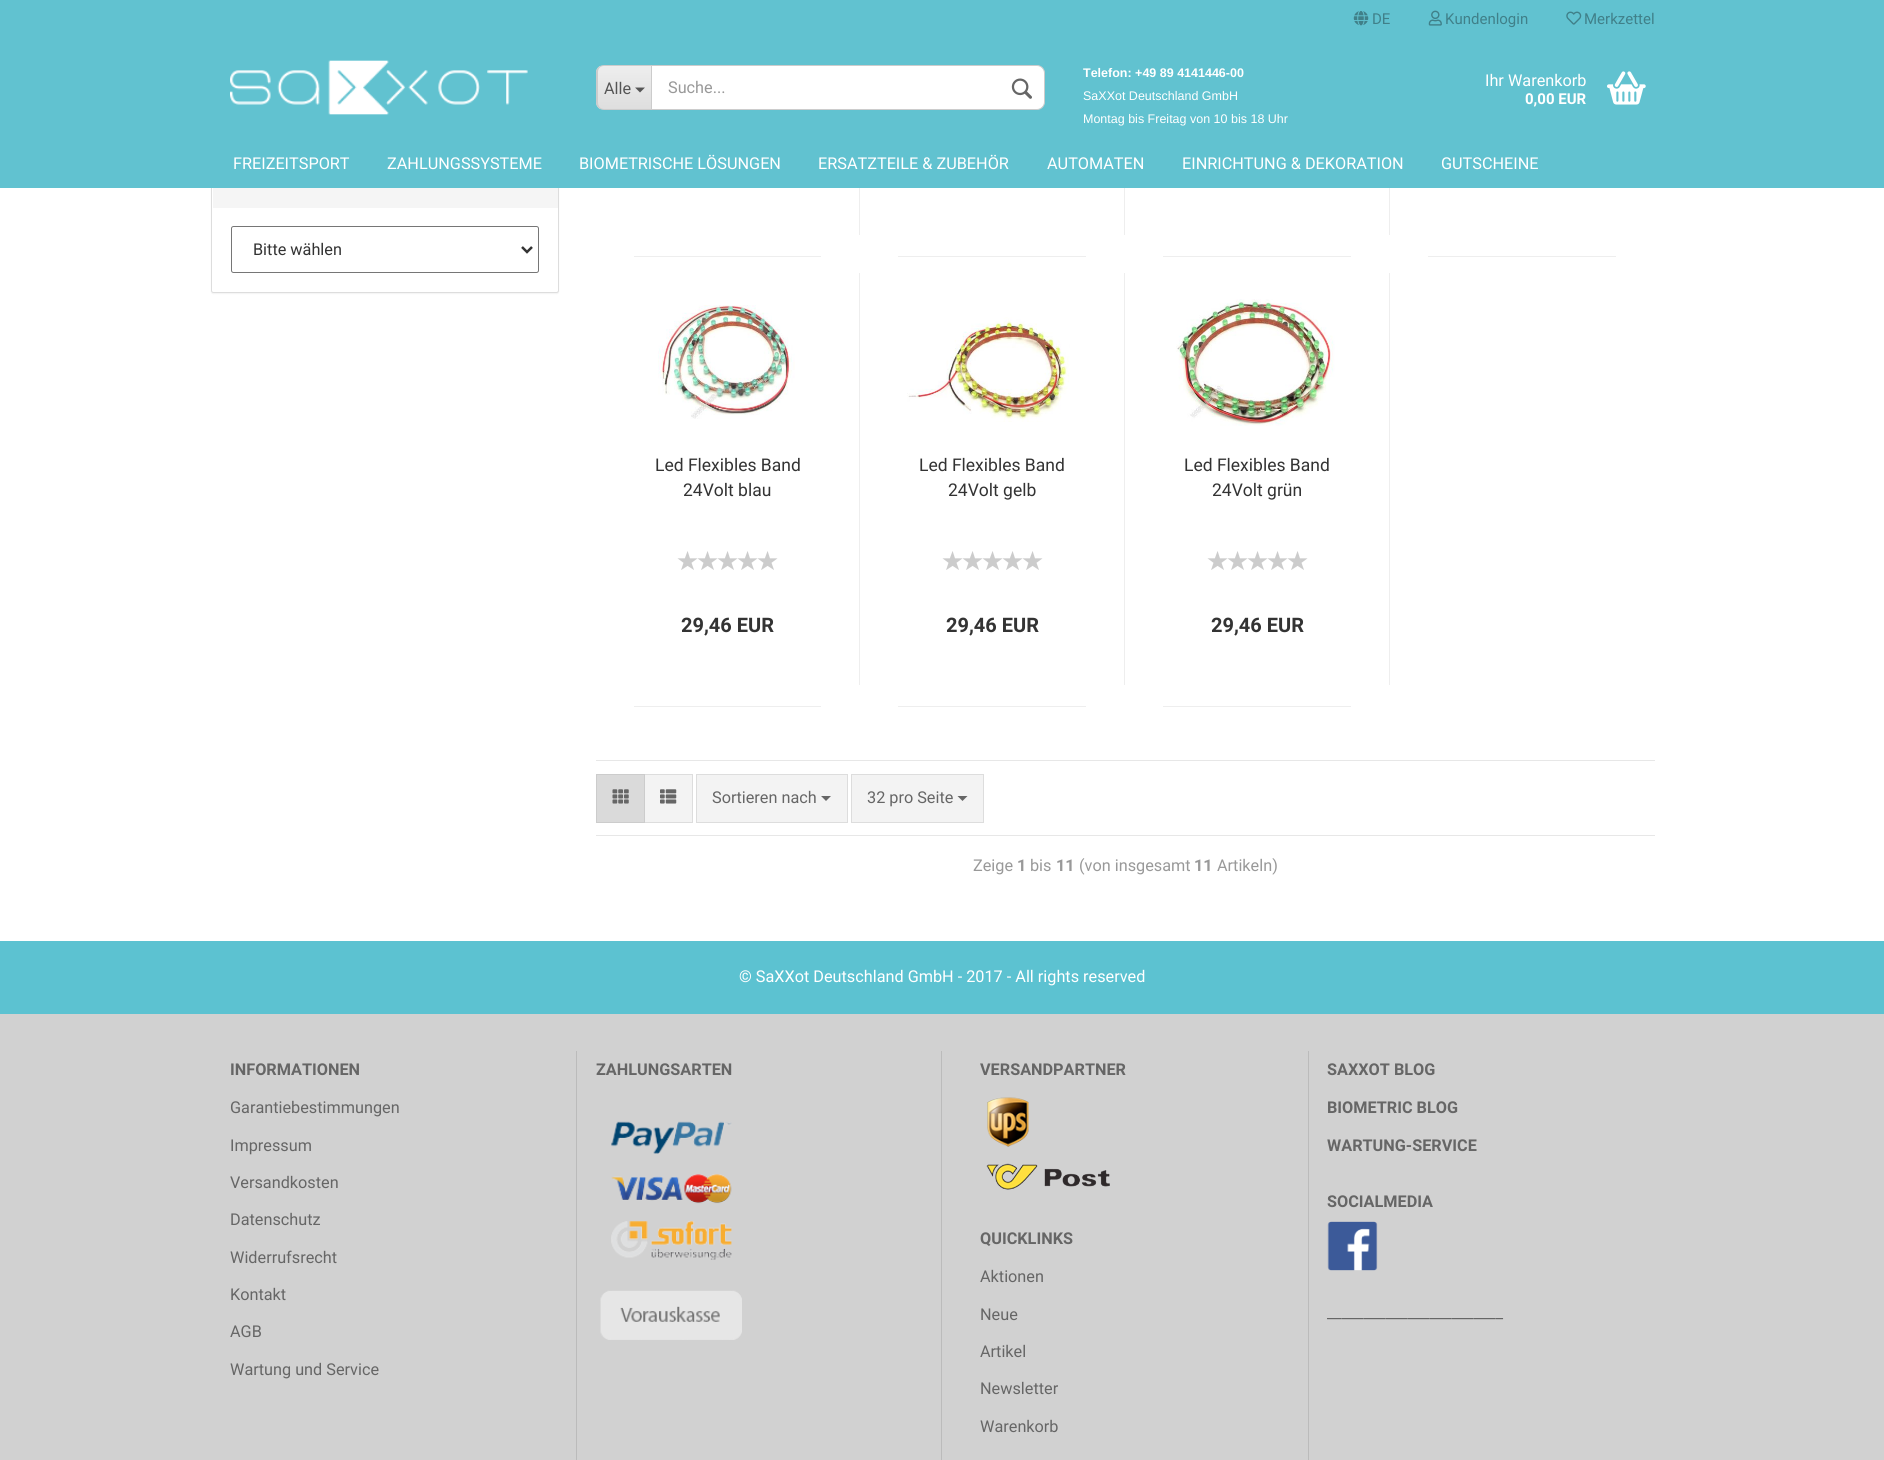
import math
import cairocffi as cairo

surface = cairo.ImageSurface(cairo.FORMAT_RGB24, 1884, 1460)
cr = cairo.Context(surface)
options = cairo.FontOptions()
options.set_hint_metrics(cairo.HINT_METRICS_OFF)
options.set_hint_style(cairo.HINT_STYLE_NONE)
cr.set_font_options(options)
cr.set_miter_limit(4)


def use_color(code):
    cr.set_source_rgb(*(v / 255 for v in bytes.fromhex(code[-6:])))


def round_rect(x, y, w, h, r):
    cr.new_sub_path()
    for i, (u, v) in enumerate([(x + w - r, y + h - r), (x + r, y + h - r), (x + r, y + r), (x + w - r, y + r)]):
        cr.arc(u, v, r, i * math.pi / 2, (i + 1) * math.pi / 2)
    cr.close_path()


def shadow(x, y, w, h, r, blur, alpha):
    cr.push_group_with_content(cairo.CONTENT_ALPHA)
    cr.set_operator(cairo.OPERATOR_SOURCE)
    for i in range(15, -16, -2):
        e = blur * i / 6
        if min(w, h) + 2 * e > 0:
            cr.set_source_rgba(0, 0, 0, alpha * math.erfc((i - 1) / 8.5) / 2)
            round_rect(x - e, y - e, w + 2 * e, h + 2 * e, max(0, min(r + e + blur * .6, min(w, h) / 2 + e)))
            cr.fill()
    cr.mask(cr.pop_group())


def picture(path, x, y, w, h):
    cr.save()
    cr.set_source_surface(cairo.ImageSurface.create_from_png(path), x, y)
    cr.rectangle(x, y, w, h)
    cr.fill()
    cr.restore()


use_color("#ffffff")
cr.paint()
use_color("#000000")
shadow(211, 154, 348, 140, 2.5, 0.5, 0.05)
use_color("#ffffff")
round_rect(211.5, 153.5, 347, 139, 2)
cr.fill_preserve()
use_color("#dddddd")
cr.set_line_width(1)
cr.stroke()
use_color("#61c2d0")
cr.rectangle(0, 0, 1884, 188)
cr.fill()
picture("img1.png", 1353, 11, 16, 15)
cr.select_font_face("Roboto")
cr.set_font_size(15)
use_color("#408089")
cr.move_to(1372, 24)
cr.show_text("DE")
picture("img2.png", 1428, 10, 14, 16)
cr.move_to(1445, 24)
cr.show_text("Kundenlogin")
picture("img3.png", 1566, 11, 16, 14)
cr.move_to(1584, 24)
cr.show_text("Merkzettel")
picture("img4.png", 230, 60, 298, 55)
cr.save()
cr.new_path()
cr.move_to(604, 65)
cr.line_to(651, 65)
cr.line_to(651, 110)
cr.line_to(604, 110)
cr.curve_to(599.5, 110, 596, 106.5, 596, 102)
cr.line_to(596, 73)
cr.curve_to(596, 68.5, 599.5, 65, 604, 65)
cr.close_path()
cr.clip()
gradient = cairo.LinearGradient(624, 66, 624, 109)
gradient.add_color_stop_rgba(0, 0.933, 0.933, 0.933, 1)
gradient.add_color_stop_rgba(1, 0.871, 0.871, 0.871, 1)
cr.set_source(gradient)
cr.rectangle(596, 66, 55, 43)
cr.fill()
cr.restore()
use_color("#cccccc")
cr.set_fill_rule(cairo.FILL_RULE_EVEN_ODD)
cr.new_path()
cr.move_to(604, 65)
cr.line_to(651, 65)
cr.line_to(651, 110)
cr.line_to(604, 110)
cr.curve_to(600, 110, 596, 107, 596, 102)
cr.line_to(596, 72)
cr.curve_to(596, 68, 600, 65, 604, 65)
cr.close_path()
cr.move_to(604, 66)
cr.line_to(651, 66)
cr.line_to(651, 109)
cr.line_to(604, 109)
cr.curve_to(600, 109, 598, 106, 598, 102)
cr.line_to(598, 72)
cr.curve_to(598, 69, 600, 66, 604, 66)
cr.close_path()
cr.fill()
cr.set_font_size(16.25)
use_color("#555555")
cr.move_to(604, 94)
cr.show_text("Alle")
cr.set_fill_rule(cairo.FILL_RULE_WINDING)
cr.new_path()
cr.move_to(635, 87.5)
cr.line_to(645, 87.5)
cr.line_to(640, 92.5)
cr.close_path()
cr.fill()
use_color("#ffffff")
cr.new_path()
cr.move_to(651.5, 65.5)
cr.line_to(1037, 65.5)
cr.curve_to(1041, 65.5, 1044.5, 69, 1044.5, 73)
cr.line_to(1044.5, 102)
cr.curve_to(1044.5, 106, 1041, 109.5, 1037, 109.5)
cr.line_to(651.5, 109.5)
cr.close_path()
cr.fill_preserve()
use_color("#cccccc")
cr.stroke()
use_color("#999999")
cr.move_to(668, 93)
cr.show_text("Suche...")
picture("img5.png", 1011, 78, 21, 21)
cr.select_font_face("Liberation Sans", cairo.FONT_SLANT_NORMAL, cairo.FONT_WEIGHT_BOLD)
cr.set_font_size(12.5)
use_color("#ffffff")
cr.move_to(1083, 77)
cr.show_text("Telefon: +49 89 4141446-00")
cr.select_font_face("Liberation Sans")
cr.move_to(1083, 100)
cr.show_text("SaXXot Deutschland GmbH")
cr.move_to(1083, 123)
cr.show_text("Montag bis Freitag von 10 bis 18 Uhr")
cr.select_font_face("Roboto")
cr.set_font_size(16.25)
cr.move_to(1485, 86)
cr.show_text("Ihr Warenkorb")
cr.select_font_face("Roboto", cairo.FONT_SLANT_NORMAL, cairo.FONT_WEIGHT_BOLD)
cr.set_font_size(15)
cr.move_to(1525, 104)
cr.show_text("0,00 EUR")
picture("img6.png", 1607, 71, 39, 34)
cr.select_font_face("Roboto")
cr.set_font_size(16.25)
cr.move_to(233, 169)
cr.show_text("FREIZEITSPORT")
cr.move_to(387, 169)
cr.show_text("ZAHLUNGSSYSTEME")
cr.move_to(579, 169)
cr.show_text("BIOMETRISCHE LÖSUNGEN")
cr.move_to(818, 169)
cr.show_text("ERSATZTEILE & ZUBEHÖR")
cr.move_to(1047, 169)
cr.show_text("AUTOMATEN")
cr.move_to(1182, 169)
cr.show_text("EINRICHTUNG & DEKORATION")
cr.move_to(1441, 169)
cr.show_text("GUTSCHEINE")
use_color("#f5f5f5")
cr.rectangle(213, 188, 345, 20)
cr.fill()
round_rect(231.5, 226.5, 307, 46, 2)
use_color("#767676")
cr.stroke()
cr.new_path()
cr.move_to(522, 247)
cr.line_to(527, 252)
cr.line_to(532, 247)
use_color("#333333")
cr.set_line_width(2.5)
cr.stroke()
cr.move_to(253, 255)
cr.show_text("Bitte wählen")
use_color("#eeeeee")
cr.rectangle(859, 188, 1, 47)
cr.fill()
cr.rectangle(634, 256, 187, 1)
cr.fill()
cr.rectangle(1124, 188, 1, 47)
cr.fill()
cr.rectangle(898, 256, 188, 1)
cr.fill()
cr.rectangle(1389, 188, 1, 47)
cr.fill()
cr.rectangle(1163, 256, 188, 1)
cr.fill()
cr.rectangle(1428, 256, 188, 1)
cr.fill()
cr.rectangle(859, 273, 1, 412)
cr.fill()
picture("img7.png", 658, 305, 137, 114)
cr.set_font_size(17.5)
use_color("#333333")
cr.move_to(655, 471)
cr.show_text("Led Flexibles Band")
cr.move_to(683, 496)
cr.show_text("24Volt blau")
picture("img8.png", 677, 551, 21, 19)
picture("img9.png", 697, 551, 21, 19)
picture("img9.png", 717, 551, 21, 19)
picture("img9.png", 737, 551, 21, 19)
picture("img9.png", 757, 551, 21, 19)
use_color("#eeeeee")
cr.rectangle(634, 706, 187, 1)
cr.fill()
cr.select_font_face("Roboto", cairo.FONT_SLANT_NORMAL, cairo.FONT_WEIGHT_BOLD)
cr.set_font_size(20)
use_color("#333333")
cr.move_to(681, 632)
cr.show_text("29,46 EUR")
use_color("#eeeeee")
cr.rectangle(1124, 273, 1, 412)
cr.fill()
picture("img10.png", 907, 317, 163, 105)
cr.select_font_face("Roboto")
cr.set_font_size(17.5)
use_color("#333333")
cr.move_to(919, 471)
cr.show_text("Led Flexibles Band")
cr.move_to(948, 496)
cr.show_text("24Volt gelb")
picture("img8.png", 942, 551, 21, 19)
picture("img9.png", 962, 551, 21, 19)
picture("img9.png", 982, 551, 21, 19)
picture("img9.png", 1002, 551, 21, 19)
picture("img9.png", 1022, 551, 21, 19)
use_color("#eeeeee")
cr.rectangle(898, 706, 188, 1)
cr.fill()
cr.select_font_face("Roboto", cairo.FONT_SLANT_NORMAL, cairo.FONT_WEIGHT_BOLD)
cr.set_font_size(20)
use_color("#333333")
cr.move_to(946, 632)
cr.show_text("29,46 EUR")
use_color("#eeeeee")
cr.rectangle(1389, 273, 1, 412)
cr.fill()
picture("img11.png", 1176, 299, 159, 127)
cr.select_font_face("Roboto")
cr.set_font_size(17.5)
use_color("#333333")
cr.move_to(1184, 471)
cr.show_text("Led Flexibles Band")
cr.move_to(1212, 496)
cr.show_text("24Volt grün")
picture("img8.png", 1207, 551, 21, 19)
picture("img9.png", 1227, 551, 21, 19)
picture("img9.png", 1247, 551, 21, 19)
picture("img9.png", 1267, 551, 21, 19)
picture("img9.png", 1287, 551, 21, 19)
use_color("#eeeeee")
cr.rectangle(1163, 706, 188, 1)
cr.fill()
cr.select_font_face("Roboto", cairo.FONT_SLANT_NORMAL, cairo.FONT_WEIGHT_BOLD)
cr.set_font_size(20)
use_color("#333333")
cr.move_to(1211, 632)
cr.show_text("29,46 EUR")
use_color("#e7e7e7")
cr.rectangle(596, 760, 1059, 1)
cr.fill()
cr.rectangle(596, 835, 1059, 1)
cr.fill()
use_color("#f3f3f3")
cr.rectangle(644.5, 774.5, 48, 48)
cr.fill_preserve()
use_color("#dddddd")
cr.set_line_width(1)
cr.stroke()
use_color("#dadada")
cr.rectangle(596.5, 774.5, 48, 48)
cr.fill_preserve()
use_color("#cccccc")
cr.stroke()
picture("img12.png", 612, 789, 17, 15)
picture("img13.png", 660, 789, 17, 15)
use_color("#f3f3f3")
cr.rectangle(696.5, 774.5, 151, 48)
cr.fill_preserve()
use_color("#dddddd")
cr.stroke()
cr.select_font_face("Roboto")
cr.set_font_size(16.25)
use_color("#666666")
cr.move_to(712, 803)
cr.show_text("Sortieren nach")
cr.new_path()
cr.move_to(821, 796)
cr.line_to(831, 796)
cr.line_to(826, 801)
cr.close_path()
cr.fill()
use_color("#f3f3f3")
cr.rectangle(851.5, 774.5, 132, 48)
cr.fill_preserve()
use_color("#dddddd")
cr.stroke()
use_color("#666666")
cr.move_to(867, 803)
cr.show_text("32 pro Seite")
cr.new_path()
cr.move_to(957.5, 796)
cr.line_to(967.5, 796)
cr.line_to(962.5, 801)
cr.close_path()
cr.fill()
use_color("#999999")
cr.move_to(973, 871)
cr.show_text("Zeige")
cr.select_font_face("Roboto", cairo.FONT_SLANT_NORMAL, cairo.FONT_WEIGHT_BOLD)
cr.move_to(1017, 871)
cr.show_text("1")
cr.select_font_face("Roboto")
cr.move_to(1030, 871)
cr.show_text("bis")
cr.select_font_face("Roboto", cairo.FONT_SLANT_NORMAL, cairo.FONT_WEIGHT_BOLD)
cr.move_to(1056, 871)
cr.show_text("11")
cr.select_font_face("Roboto")
cr.move_to(1079, 871)
cr.show_text("(von insgesamt")
cr.select_font_face("Roboto", cairo.FONT_SLANT_NORMAL, cairo.FONT_WEIGHT_BOLD)
cr.move_to(1194, 871)
cr.show_text("11")
cr.select_font_face("Roboto")
cr.move_to(1217, 871)
cr.show_text("Artikeln)")
use_color("#d1d1d1")
cr.rectangle(0, 1014, 1884, 446)
cr.fill()
use_color("#5cc2d1")
cr.rectangle(0, 941, 1884, 73)
cr.fill()
use_color("#ffffff")
cr.move_to(739, 982)
cr.show_text("© SaXXot Deutschland GmbH - 2017 - All rights reserved")
use_color("#bbbbbb")
cr.rectangle(576, 1051, 1, 409)
cr.fill()
cr.select_font_face("Roboto", cairo.FONT_SLANT_NORMAL, cairo.FONT_WEIGHT_BOLD)
use_color("#666666")
cr.move_to(230, 1075)
cr.show_text("INFORMATIONEN")
cr.select_font_face("Roboto")
cr.move_to(230, 1113)
cr.show_text("Garantiebestimmungen")
cr.move_to(230, 1151)
cr.show_text("Impressum")
cr.move_to(230, 1188)
cr.show_text("Versandkosten")
cr.move_to(230, 1225)
cr.show_text("Datenschutz")
cr.move_to(230, 1263)
cr.show_text("Widerrufsrecht")
cr.move_to(230, 1300)
cr.show_text("Kontakt")
cr.move_to(230, 1337)
cr.show_text("AGB")
cr.move_to(230, 1375)
cr.show_text("Wartung und Service")
use_color("#bbbbbb")
cr.rectangle(941, 1051, 1, 409)
cr.fill()
cr.select_font_face("Roboto", cairo.FONT_SLANT_NORMAL, cairo.FONT_WEIGHT_BOLD)
use_color("#666666")
cr.move_to(596, 1075)
cr.show_text("ZAHLUNGSARTEN")
picture("img14.png", 611, 1121, 121, 33)
picture("img15.png", 611, 1174, 121, 30)
picture("img16.png", 611, 1221, 121, 39)
picture("img17.png", 600, 1290, 142, 50)
use_color("#bbbbbb")
cr.rectangle(1308, 1051, 1, 409)
cr.fill()
use_color("#666666")
cr.move_to(980, 1075)
cr.show_text("VERSANDPARTNER")
picture("img18.png", 987, 1097, 42, 50)
picture("img19.png", 986, 1163, 124, 27)
cr.move_to(980, 1244)
cr.show_text("QUICKLINKS")
cr.select_font_face("Roboto")
cr.move_to(980, 1282)
cr.show_text("Aktionen")
cr.move_to(980, 1320)
cr.show_text("Neue")
cr.move_to(980, 1357)
cr.show_text("Artikel")
cr.move_to(980, 1394)
cr.show_text("Newsletter")
cr.move_to(980, 1432)
cr.show_text("Warenkorb")
cr.select_font_face("Roboto", cairo.FONT_SLANT_NORMAL, cairo.FONT_WEIGHT_BOLD)
cr.move_to(1327, 1075)
cr.show_text("SAXXOT BLOG")
cr.move_to(1327, 1113)
cr.show_text("BIOMETRIC BLOG")
cr.move_to(1327, 1151)
cr.show_text("WARTUNG-SERVICE")
cr.move_to(1327, 1207)
cr.show_text("SOCIALMEDIA")
picture("img20.png", 1327, 1221, 51, 50)
cr.select_font_face("Roboto")
cr.move_to(1327, 1318)
cr.show_text("________________________")
surface.write_to_png("result.png")
